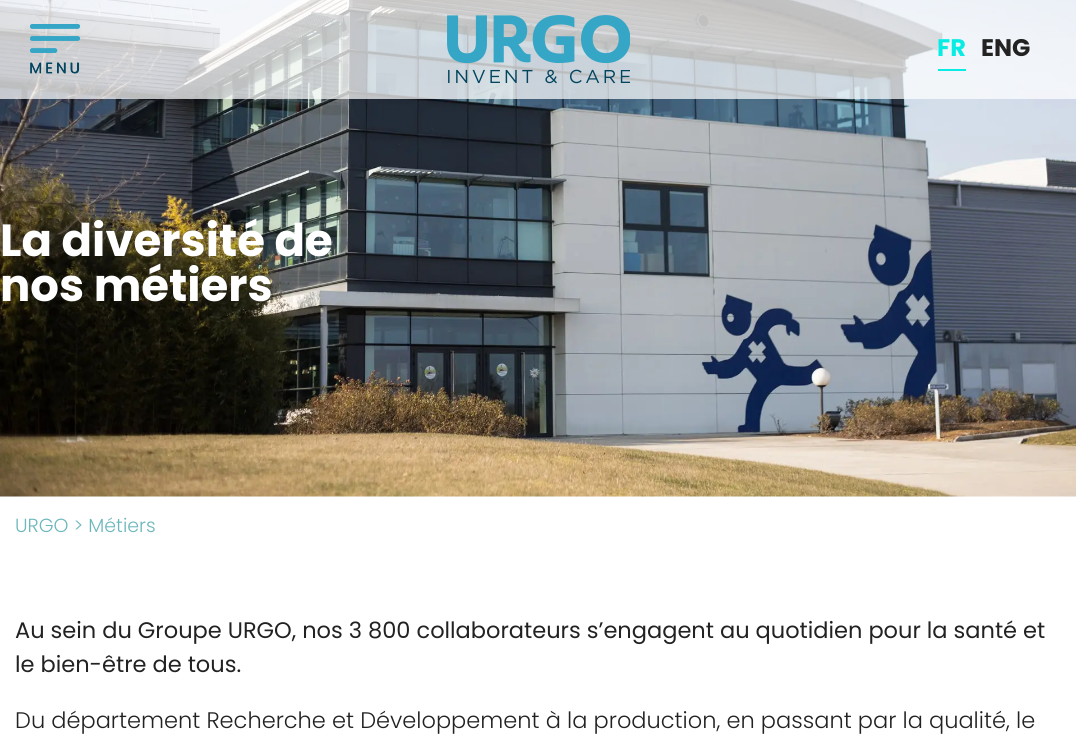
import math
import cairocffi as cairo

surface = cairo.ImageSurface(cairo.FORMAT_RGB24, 1076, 737)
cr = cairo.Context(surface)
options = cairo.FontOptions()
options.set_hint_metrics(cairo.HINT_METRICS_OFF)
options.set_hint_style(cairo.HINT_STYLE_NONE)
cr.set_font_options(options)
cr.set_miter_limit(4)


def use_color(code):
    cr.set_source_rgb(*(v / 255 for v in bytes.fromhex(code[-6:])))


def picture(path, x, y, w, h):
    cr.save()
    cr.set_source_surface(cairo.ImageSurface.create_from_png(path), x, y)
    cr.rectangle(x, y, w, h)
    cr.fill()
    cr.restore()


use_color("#ffffff")
cr.paint()
picture("img4.png", 0, 0, 1076, 497)
cr.set_source_rgba(1, 1, 1, 0.72)
cr.rectangle(0, 0, 1076, 99)
cr.fill()
picture("img1.png", 30, 24, 50, 50)
picture("img2.png", 30, 24, 50, 50)
picture("img3.png", 447, 15, 183, 69)
use_color("#08ece4")
cr.rectangle(938, 69, 28, 2)
cr.fill()
cr.select_font_face("Poppins", cairo.FONT_SLANT_NORMAL, cairo.FONT_WEIGHT_BOLD)
cr.set_font_size(24)
cr.move_to(937, 56)
cr.show_text("FR")
use_color("#222222")
cr.move_to(981, 56)
cr.show_text("ENG")
cr.set_font_size(45)
use_color("#ffffff")
cr.move_to(0, 256)
cr.show_text("La diversité de")
cr.move_to(0, 301)
cr.show_text("nos métiers")
cr.select_font_face("Poppins Light")
cr.set_font_size(19)
use_color("#6cb7bb")
cr.move_to(15, 532)
cr.show_text("URGO > Métiers")
cr.select_font_face("Poppins")
cr.set_font_size(22.5)
use_color("#222222")
cr.move_to(15, 638)
cr.show_text("Au sein du Groupe URGO, nos 3 800 collaborateurs s’engagent au quotidien pour la santé et")
cr.move_to(15, 672)
cr.show_text("le bien-être de tous.")
cr.select_font_face("Poppins Light")
cr.move_to(15, 728)
cr.show_text("Du département Recherche et Développement à la production, en passant par la qualité, le")
surface.write_to_png("result.png")
